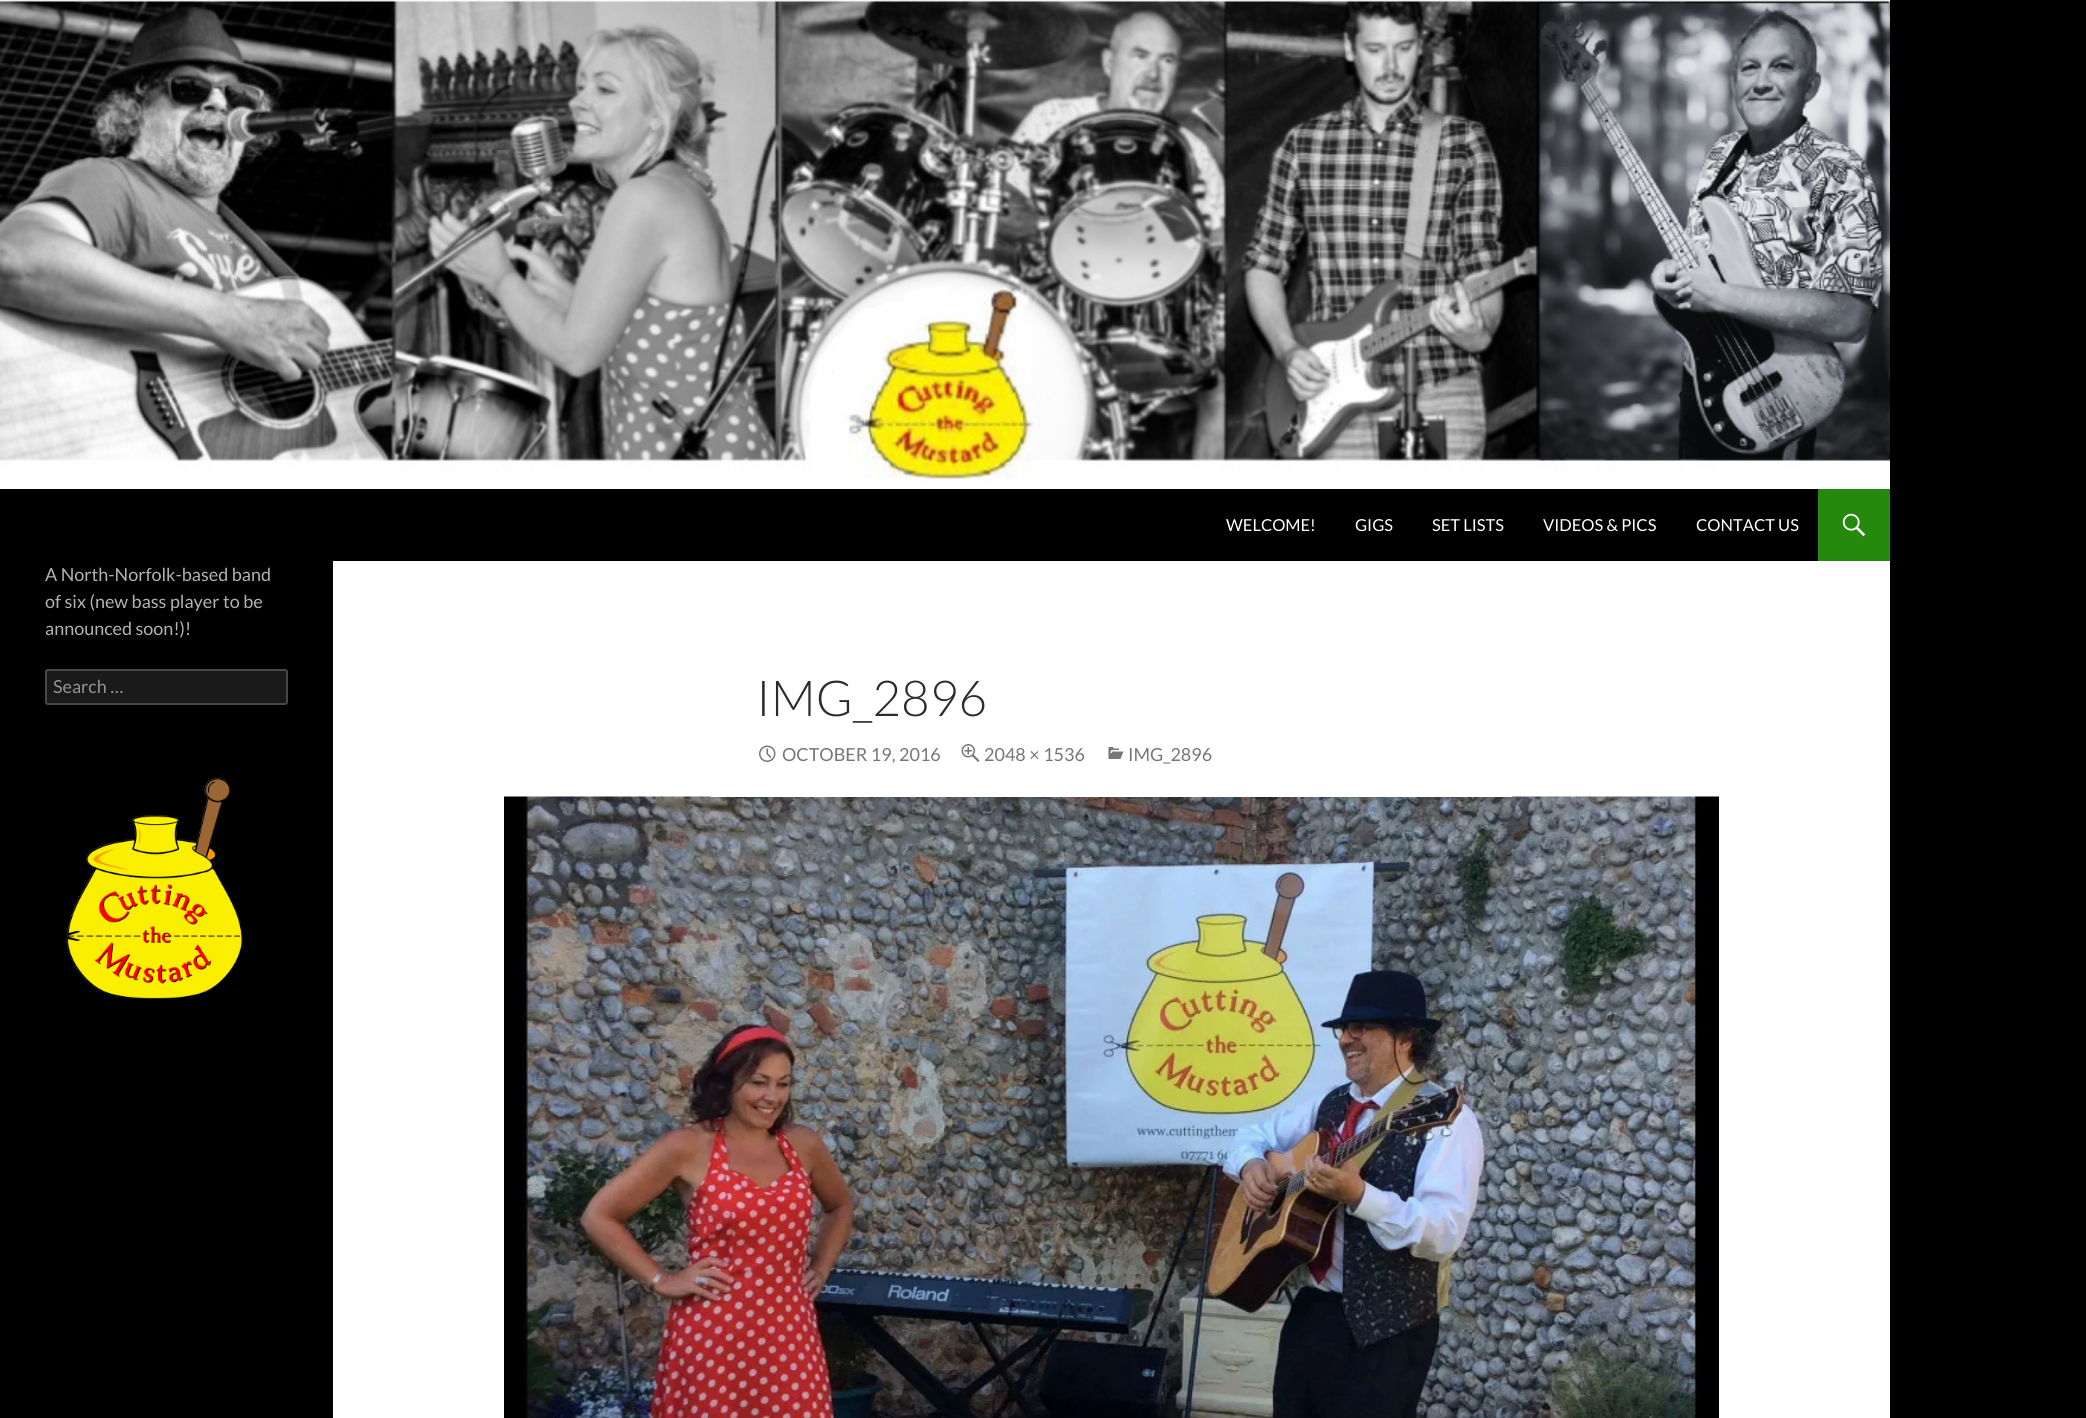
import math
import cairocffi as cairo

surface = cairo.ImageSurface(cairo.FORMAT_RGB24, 2086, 1418)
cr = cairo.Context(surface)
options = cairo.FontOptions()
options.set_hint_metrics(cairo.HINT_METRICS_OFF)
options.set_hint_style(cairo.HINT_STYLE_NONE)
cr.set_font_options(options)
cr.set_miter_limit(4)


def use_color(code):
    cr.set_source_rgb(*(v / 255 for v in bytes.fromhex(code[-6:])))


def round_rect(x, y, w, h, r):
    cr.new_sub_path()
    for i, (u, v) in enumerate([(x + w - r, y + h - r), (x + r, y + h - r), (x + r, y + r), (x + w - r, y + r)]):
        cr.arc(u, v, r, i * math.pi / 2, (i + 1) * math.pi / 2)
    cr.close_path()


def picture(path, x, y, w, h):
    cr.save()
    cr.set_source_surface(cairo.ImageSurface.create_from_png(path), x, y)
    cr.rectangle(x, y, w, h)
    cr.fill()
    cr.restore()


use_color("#000000")
cr.paint()
use_color("#ffffff")
cr.rectangle(333, 561, 1557, 857)
cr.fill()
picture("img1.png", 0, 0, 1890, 489)
cr.select_font_face("Lato")
cr.set_font_size(16.5)
cr.move_to(1226, 531)
cr.show_text("WELCOME!")
cr.move_to(1355, 531)
cr.show_text("GIGS")
cr.move_to(1432, 531)
cr.show_text("SET LISTS")
cr.move_to(1543, 531)
cr.show_text("VIDEOS & PICS")
cr.move_to(1696, 531)
cr.show_text("CONTACT US")
use_color("#24890d")
cr.rectangle(1818, 489, 72, 72)
cr.fill()
picture("img2.png", 1842, 513, 24, 24)
cr.set_font_size(18)
use_color("#b3b3b3")
cr.move_to(45, 581)
cr.show_text("A North-Norfolk-based band")
cr.move_to(45, 608)
cr.show_text("of six (new bass player to be")
cr.move_to(45, 635)
cr.show_text("announced soon!)!")
use_color("#1a1a1a")
round_rect(45, 669, 243, 36, 3)
cr.fill()
round_rect(46, 670, 241, 34, 2)
cr.set_source_rgba(1, 1, 1, 0.2)
cr.stroke()
use_color("#939393")
cr.move_to(53, 693)
cr.show_text("Search …")
picture("img3.png", 66, 778, 178, 222)
picture("img7.png", 504, 796, 1215, 622)
use_color("#ffffff")
cr.rectangle(711, 796, 801, 1)
cr.fill()
cr.select_font_face("Lato Light")
cr.set_font_size(49.5)
use_color("#2b2b2b")
cr.move_to(756, 716)
cr.show_text("IMG_2896")
picture("img4.png", 759, 745, 17, 17)
cr.select_font_face("Lato")
cr.set_font_size(18)
use_color("#767676")
cr.move_to(782, 761)
cr.show_text("OCTOBER 19, 2016")
picture("img5.png", 961, 744, 19, 18)
cr.move_to(984, 761)
cr.show_text("2048 × 1536")
picture("img6.png", 1108, 747, 16, 12)
cr.move_to(1128, 761)
cr.show_text("IMG_2896")
surface.write_to_png("result.png")
